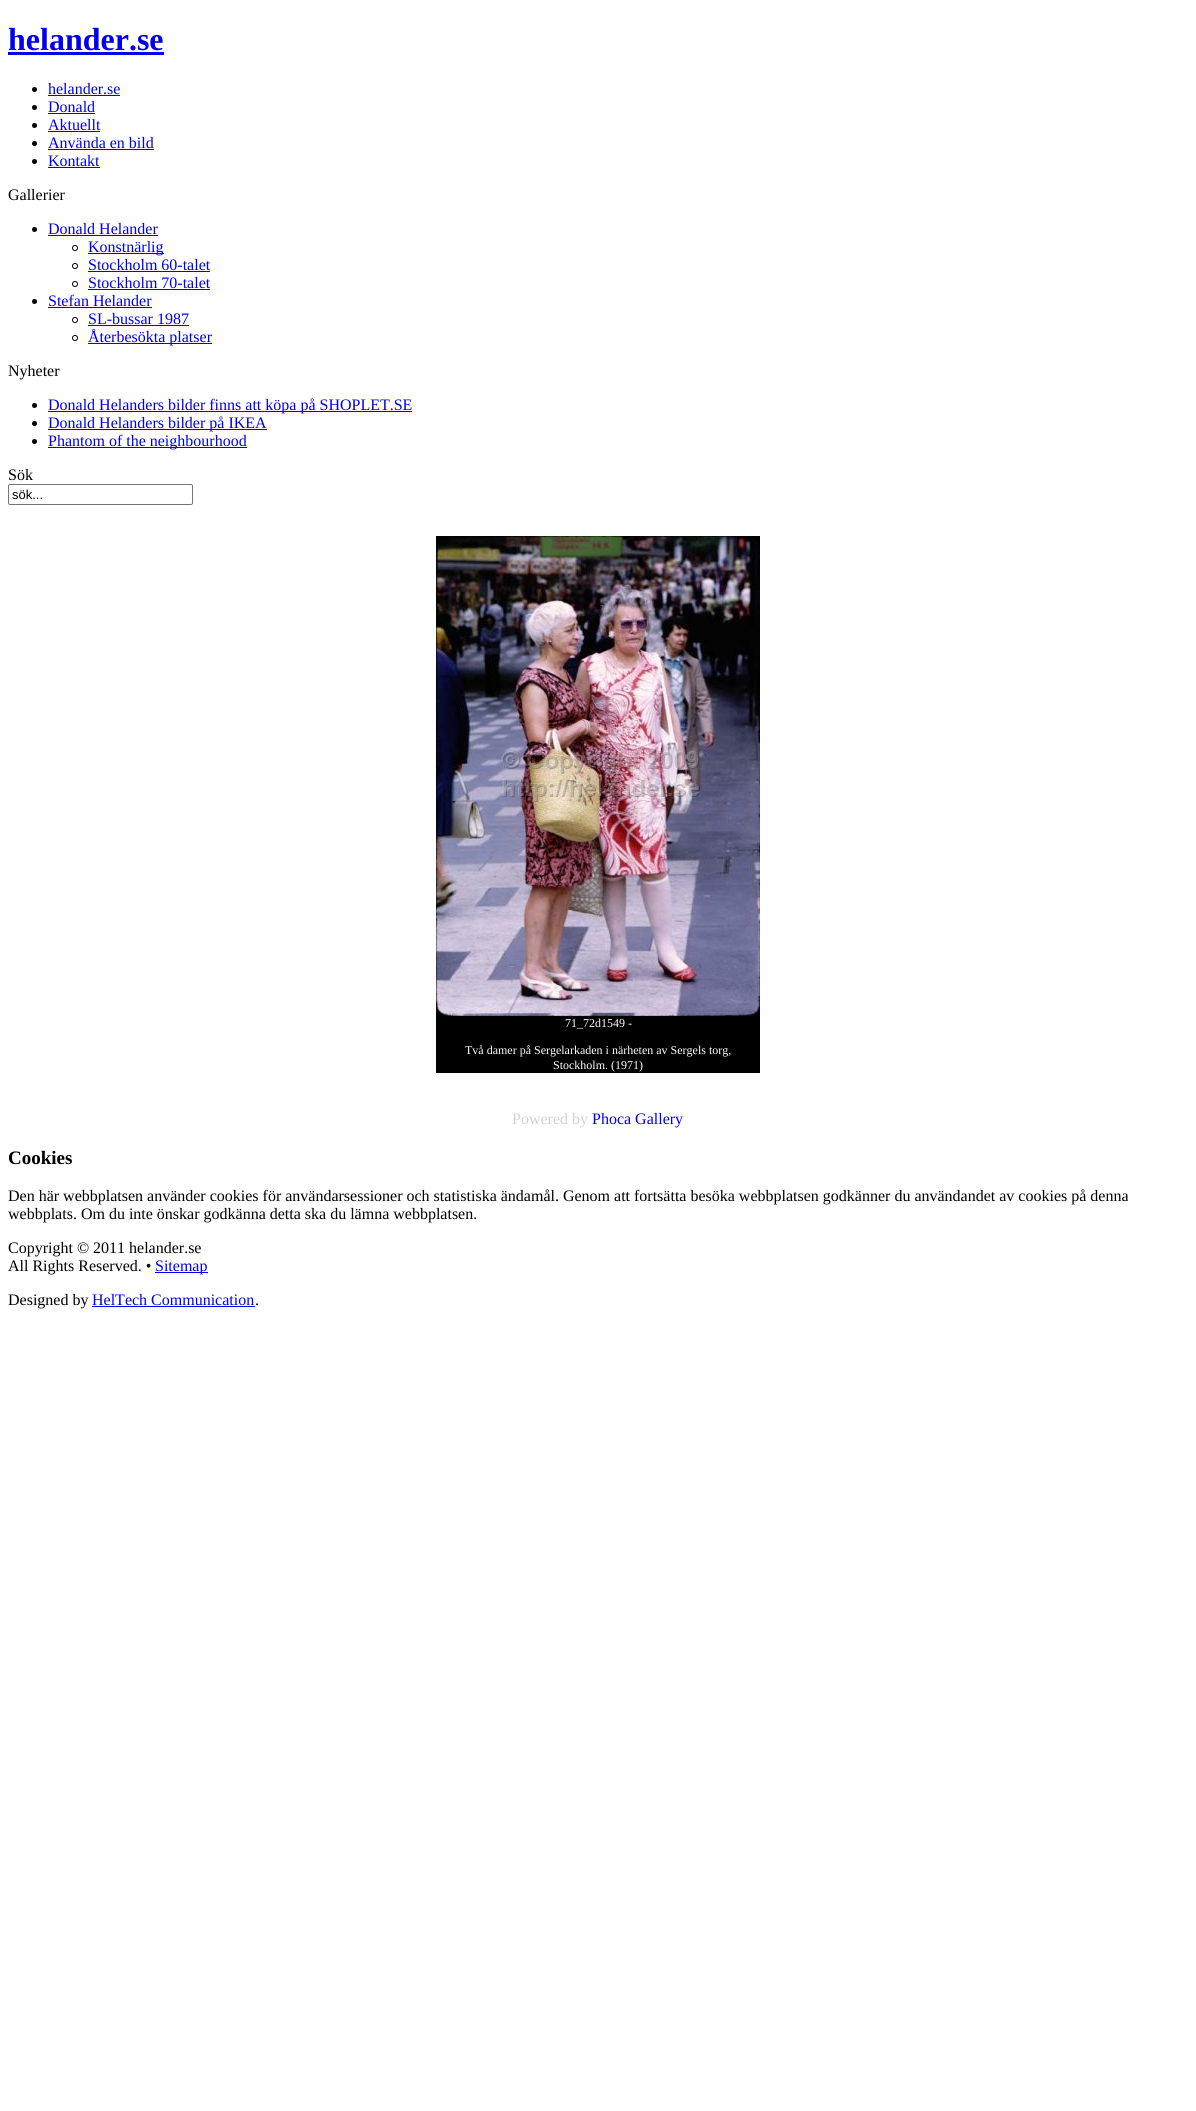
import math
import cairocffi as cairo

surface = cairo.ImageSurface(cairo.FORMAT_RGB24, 1196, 2111)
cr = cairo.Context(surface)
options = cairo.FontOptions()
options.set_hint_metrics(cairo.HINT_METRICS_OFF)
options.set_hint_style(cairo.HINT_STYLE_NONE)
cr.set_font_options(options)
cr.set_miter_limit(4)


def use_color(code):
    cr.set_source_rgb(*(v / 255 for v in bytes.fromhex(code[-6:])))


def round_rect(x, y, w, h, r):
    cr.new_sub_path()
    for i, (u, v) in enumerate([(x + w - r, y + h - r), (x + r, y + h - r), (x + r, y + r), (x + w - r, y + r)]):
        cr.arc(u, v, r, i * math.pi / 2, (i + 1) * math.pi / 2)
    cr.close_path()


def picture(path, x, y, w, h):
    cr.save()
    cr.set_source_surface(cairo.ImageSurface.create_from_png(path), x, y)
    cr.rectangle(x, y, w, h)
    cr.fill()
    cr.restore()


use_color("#ffffff")
cr.paint()
cr.select_font_face("Liberation Serif", cairo.FONT_SLANT_NORMAL, cairo.FONT_WEIGHT_BOLD)
cr.set_font_size(32)
use_color("#0000ee")
cr.move_to(8, 50)
cr.show_text("helander.se")
cr.rectangle(8, 52, 156, 3)
cr.fill()
use_color("#000000")
cr.arc(34.5, 89.5, 2.5, 0, 2 * math.pi)
cr.fill()
cr.select_font_face("Liberation Serif")
cr.set_font_size(16)
use_color("#0000ee")
cr.move_to(48, 94)
cr.show_text("helander.se")
cr.rectangle(48, 95, 72, 1)
cr.fill()
use_color("#000000")
cr.arc(34.5, 107.5, 2.5, 0, 2 * math.pi)
cr.fill()
use_color("#0000ee")
cr.move_to(48, 112)
cr.show_text("Donald")
cr.rectangle(48, 113, 47, 1)
cr.fill()
use_color("#000000")
cr.arc(34.5, 125.5, 2.5, 0, 2 * math.pi)
cr.fill()
use_color("#0000ee")
cr.move_to(48, 130)
cr.show_text("Aktuellt")
cr.rectangle(48, 131, 52, 1)
cr.fill()
use_color("#000000")
cr.arc(34.5, 143.5, 2.5, 0, 2 * math.pi)
cr.fill()
use_color("#0000ee")
cr.move_to(48, 148)
cr.show_text("Använda en bild")
cr.rectangle(48, 149, 106, 1)
cr.fill()
use_color("#000000")
cr.arc(34.5, 161.5, 2.5, 0, 2 * math.pi)
cr.fill()
use_color("#0000ee")
cr.move_to(48, 166)
cr.show_text("Kontakt")
cr.rectangle(48, 167, 52, 1)
cr.fill()
use_color("#000000")
cr.move_to(8, 200)
cr.show_text("Gallerier")
cr.new_path()
cr.arc(34.5, 229.5, 2.5, 0, 2 * math.pi)
cr.fill()
use_color("#0000ee")
cr.move_to(48, 234)
cr.show_text("Donald Helander")
cr.rectangle(48, 235, 110, 1)
cr.fill()
cr.arc(75, 248, 2.5, 0, 2 * math.pi)
use_color("#000000")
cr.set_line_width(1)
cr.stroke()
use_color("#0000ee")
cr.rectangle(88, 253, 76, 1)
cr.fill()
cr.move_to(88, 252)
cr.show_text("Konstnärlig")
cr.new_path()
cr.arc(75, 266, 2.5, 0, 2 * math.pi)
use_color("#000000")
cr.stroke()
use_color("#0000ee")
cr.move_to(88, 270)
cr.show_text("Stockholm 60-talet")
cr.rectangle(88, 271, 122, 1)
cr.fill()
cr.arc(75, 284, 2.5, 0, 2 * math.pi)
use_color("#000000")
cr.stroke()
use_color("#0000ee")
cr.move_to(88, 288)
cr.show_text("Stockholm 70-talet")
cr.rectangle(88, 289, 122, 1)
cr.fill()
use_color("#000000")
cr.arc(34.5, 301.5, 2.5, 0, 2 * math.pi)
cr.fill()
use_color("#0000ee")
cr.move_to(48, 306)
cr.show_text("Stefan Helander")
cr.rectangle(48, 307, 104, 1)
cr.fill()
cr.arc(75, 320, 2.5, 0, 2 * math.pi)
use_color("#000000")
cr.stroke()
use_color("#0000ee")
cr.move_to(88, 324)
cr.show_text("SL-bussar 1987")
cr.rectangle(88, 325, 101, 1)
cr.fill()
cr.arc(75, 338, 2.5, 0, 2 * math.pi)
use_color("#000000")
cr.stroke()
use_color("#0000ee")
cr.rectangle(88, 343, 124, 1)
cr.fill()
cr.move_to(88, 342)
cr.show_text("Återbesökta platser")
use_color("#000000")
cr.move_to(8, 376)
cr.show_text("Nyheter")
cr.new_path()
cr.arc(34.5, 405.5, 2.5, 0, 2 * math.pi)
cr.fill()
use_color("#0000ee")
cr.rectangle(48, 411, 364, 1)
cr.fill()
cr.move_to(48, 410)
cr.show_text("Donald Helanders bilder finns att köpa på SHOPLET.SE")
use_color("#000000")
cr.new_path()
cr.arc(34.5, 423.5, 2.5, 0, 2 * math.pi)
cr.fill()
use_color("#0000ee")
cr.rectangle(48, 429, 219, 1)
cr.fill()
cr.move_to(48, 428)
cr.show_text("Donald Helanders bilder på IKEA")
use_color("#000000")
cr.new_path()
cr.arc(34.5, 441.5, 2.5, 0, 2 * math.pi)
cr.fill()
use_color("#0000ee")
cr.rectangle(48, 447, 199, 1)
cr.fill()
cr.move_to(48, 446)
cr.show_text("Phantom of the neighbourhood")
use_color("#000000")
cr.move_to(8, 480)
cr.show_text("Sök")
round_rect(8.5, 484.5, 184, 20, 1.5)
use_color("#767676")
cr.stroke()
cr.select_font_face("Liberation Sans")
cr.set_font_size(13)
use_color("#000000")
cr.move_to(12, 499)
cr.show_text("sök...")
picture("img1.png", 436, 536, 324, 480)
cr.rectangle(436, 1016, 324, 57)
cr.fill()
cr.select_font_face("Liberation Serif")
cr.set_font_size(12)
use_color("#ffffff")
cr.move_to(565, 1027)
cr.show_text("71_72d1549 -")
cr.move_to(465, 1054)
cr.show_text("Två damer på Sergelarkaden i närheten av Sergels torg,")
cr.move_to(553, 1069)
cr.show_text("Stockholm. (1971)")
cr.set_font_size(16)
use_color("#d3d3d3")
cr.move_to(512, 1124)
cr.show_text("Powered by")
use_color("#0000ee")
cr.move_to(592, 1124)
cr.show_text("Phoca Gallery")
cr.select_font_face("Liberation Serif", cairo.FONT_SLANT_NORMAL, cairo.FONT_WEIGHT_BOLD)
cr.set_font_size(19)
use_color("#000000")
cr.move_to(8, 1164)
cr.show_text("Cookies")
cr.select_font_face("Liberation Serif")
cr.set_font_size(16)
cr.move_to(8, 1201)
cr.show_text("Den här webbplatsen använder cookies för användarsessioner och statistiska ändamål. Genom att fortsätta besöka webbplatsen godkänner du användandet av cookies på denna")
cr.move_to(8, 1219)
cr.show_text("webbplats. Om du inte önskar godkänna detta ska du lämna webbplatsen.")
cr.move_to(8, 1253)
cr.show_text("Copyright © 2011 helander.se")
cr.move_to(8, 1271)
cr.show_text("All Rights Reserved. •")
use_color("#0000ee")
cr.rectangle(155, 1272, 53, 1)
cr.fill()
cr.move_to(155, 1271)
cr.show_text("Sitemap")
use_color("#000000")
cr.move_to(8, 1305)
cr.show_text("Designed by")
use_color("#0000ee")
cr.move_to(92, 1305)
cr.show_text("HelTech Communication")
cr.rectangle(92, 1306, 163, 1)
cr.fill()
use_color("#000000")
cr.move_to(255, 1305)
cr.show_text(".")
surface.write_to_png("result.png")
